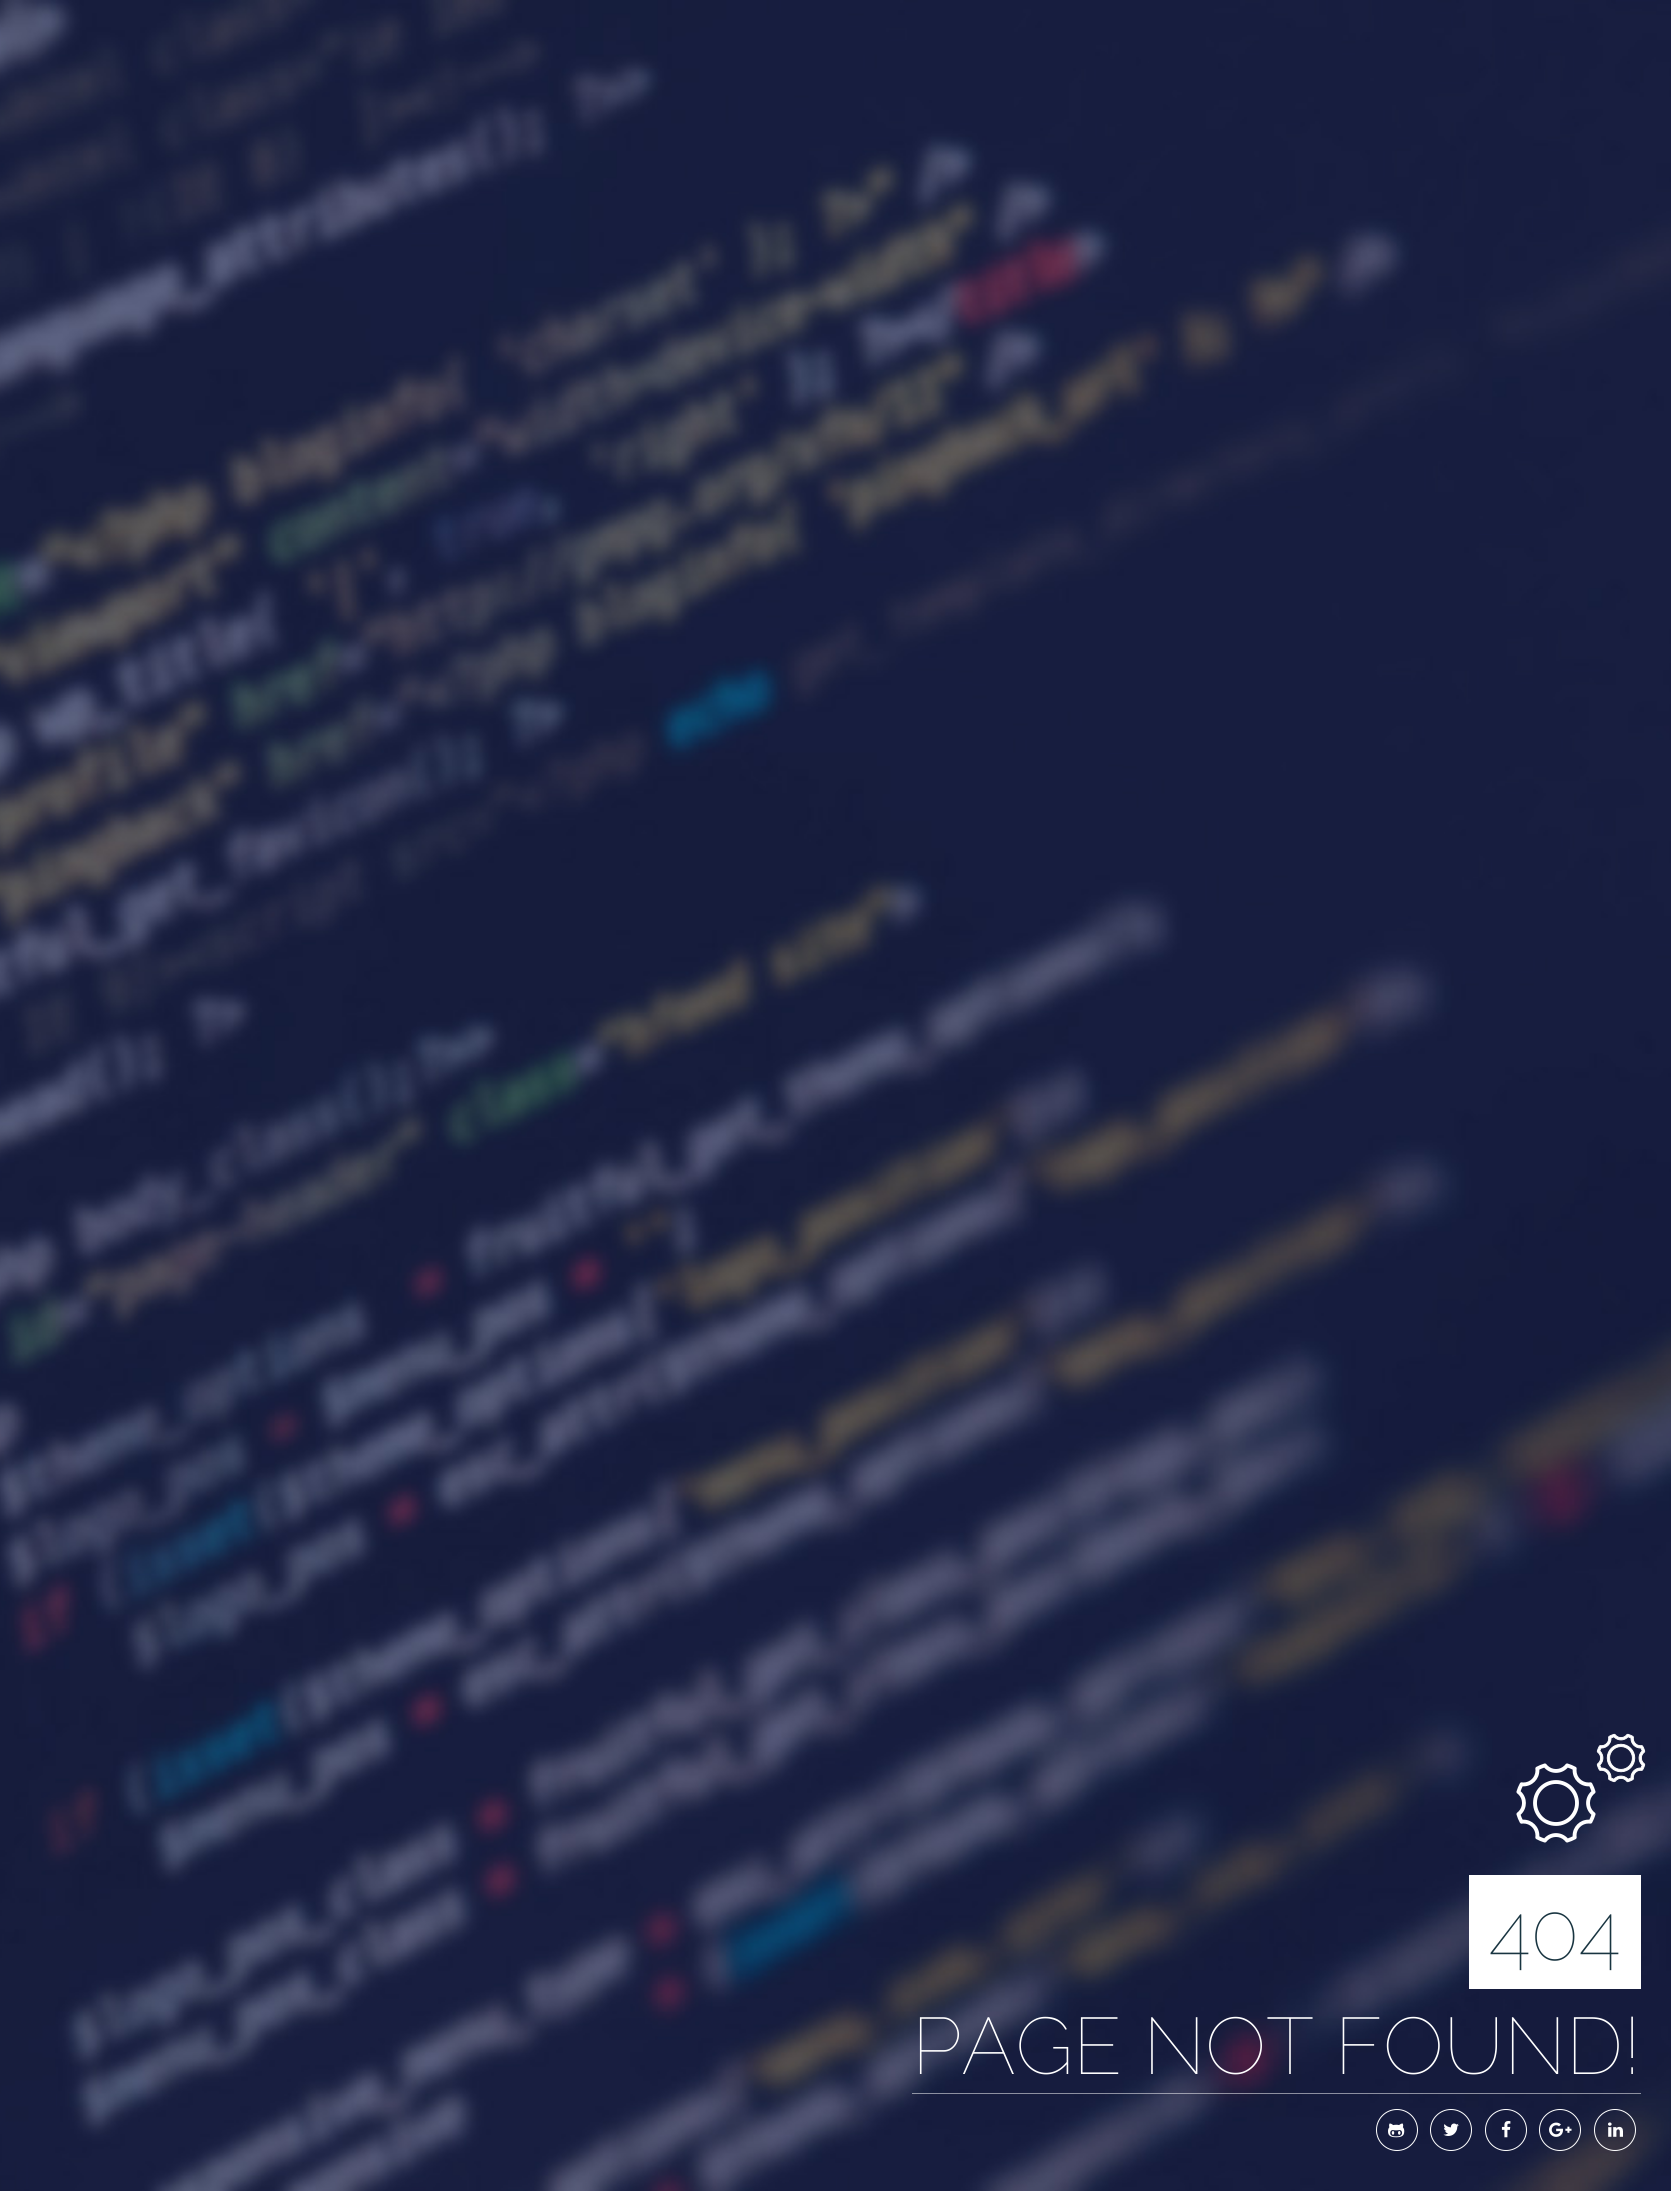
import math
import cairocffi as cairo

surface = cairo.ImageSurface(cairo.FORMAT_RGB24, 1671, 2191)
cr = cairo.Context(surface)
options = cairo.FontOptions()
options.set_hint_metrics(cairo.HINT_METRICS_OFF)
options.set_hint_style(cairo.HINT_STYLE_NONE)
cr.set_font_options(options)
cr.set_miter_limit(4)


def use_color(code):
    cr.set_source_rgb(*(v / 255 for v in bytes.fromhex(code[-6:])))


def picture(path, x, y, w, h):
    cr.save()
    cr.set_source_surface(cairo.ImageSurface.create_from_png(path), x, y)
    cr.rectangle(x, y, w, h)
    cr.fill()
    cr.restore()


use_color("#ffffff")
cr.paint()
picture("img1.png", 0, 0, 1671, 2191)
picture("img2.png", 1596, 1733, 50, 50)
picture("img3.png", 1516, 1763, 80, 80)
cr.set_source_rgba(1, 1, 1, 0.51)
cr.rectangle(912, 2093, 729, 1)
cr.fill()
use_color("#ffffff")
cr.rectangle(1469, 1875, 172, 114)
cr.fill()
cr.select_font_face("Raleway Thin")
cr.set_font_size(80)
use_color("#193541")
cr.move_to(1489, 1960)
cr.show_text("404")
use_color("#ffffff")
cr.move_to(912, 2074)
cr.show_text("PAGE NOT FOUND!")
cr.new_path()
cr.arc(1397, 2130, 20.5, 0, 2 * math.pi)
cr.set_line_width(1)
cr.stroke()
picture("img4.png", 1388, 2123, 17, 15)
cr.arc(1451, 2130, 20.5, 0, 2 * math.pi)
cr.stroke()
picture("img5.png", 1443, 2123, 16, 13)
cr.arc(1506, 2130, 20.5, 0, 2 * math.pi)
cr.stroke()
picture("img6.png", 1501, 2121, 10, 17)
cr.arc(1560, 2130, 20.5, 0, 2 * math.pi)
cr.stroke()
picture("img7.png", 1549, 2122, 23, 15)
cr.arc(1615, 2130, 20.5, 0, 2 * math.pi)
cr.stroke()
picture("img8.png", 1608, 2122, 15, 15)
surface.write_to_png("result.png")
